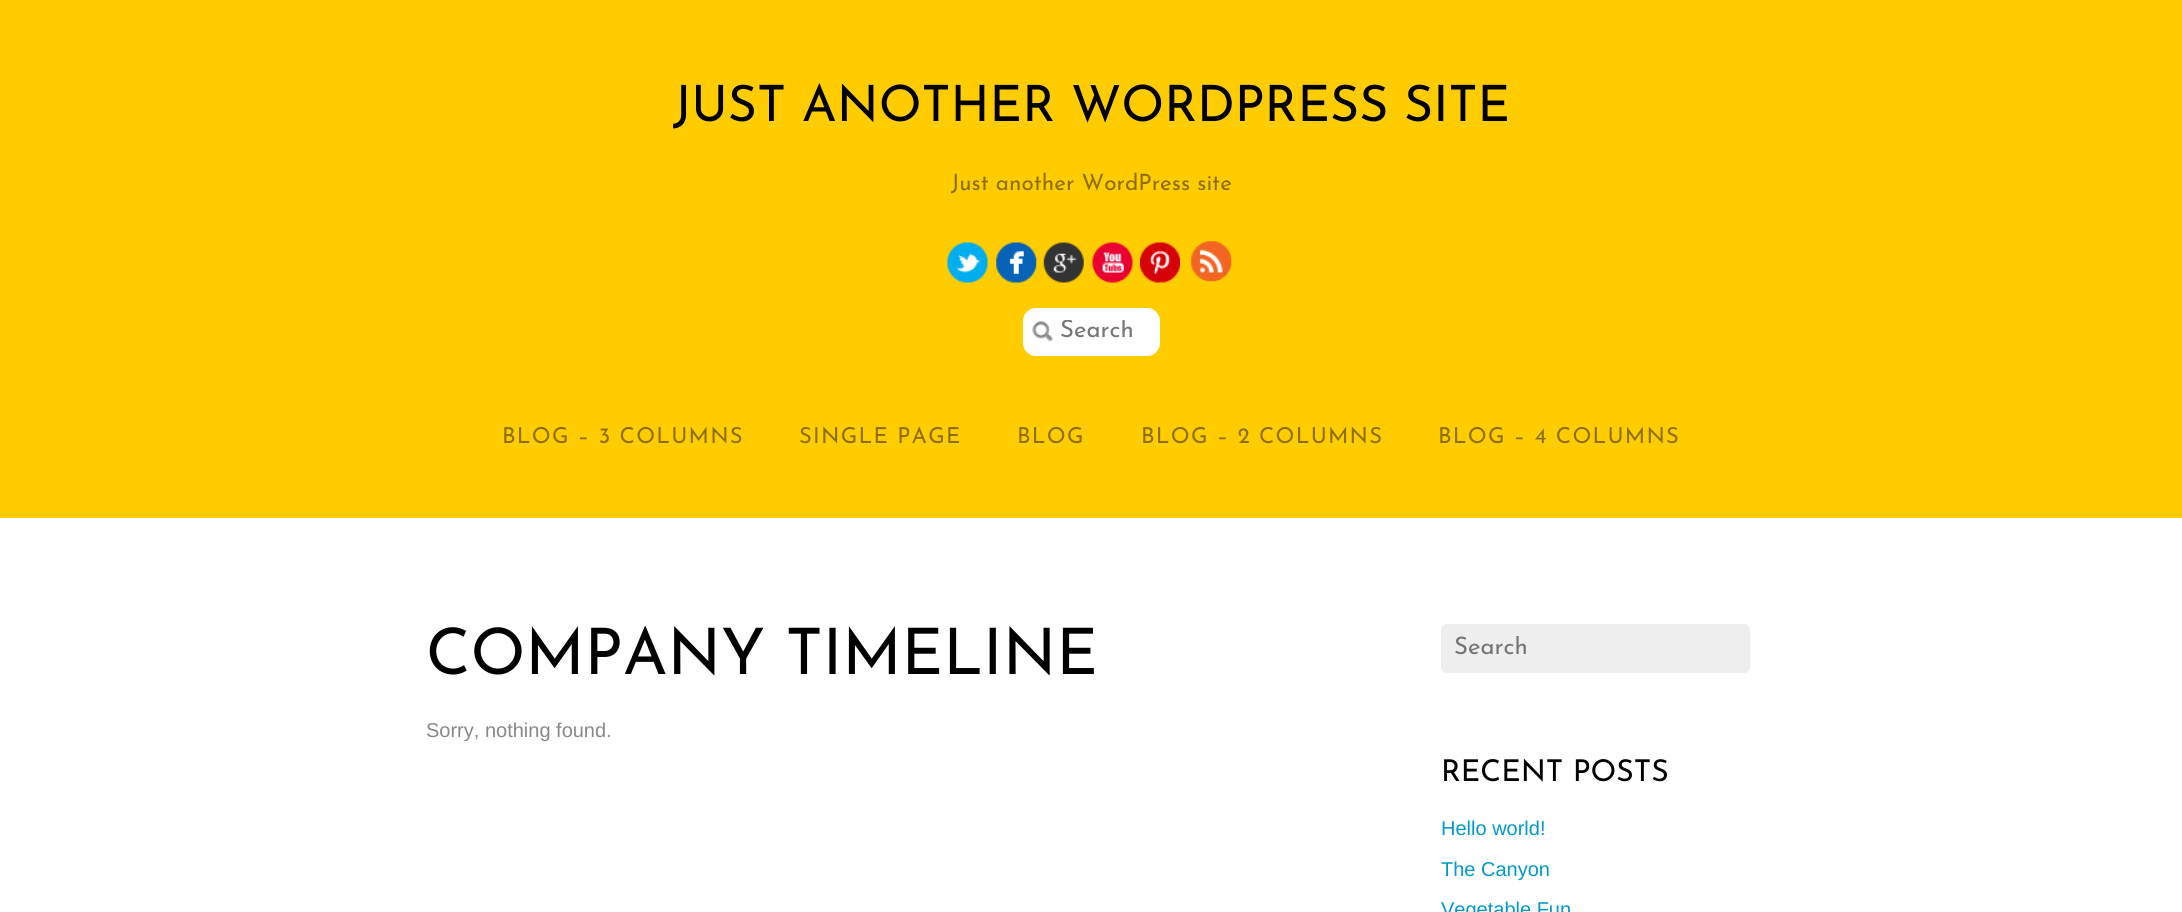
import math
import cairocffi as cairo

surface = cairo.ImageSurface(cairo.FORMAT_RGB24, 2182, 912)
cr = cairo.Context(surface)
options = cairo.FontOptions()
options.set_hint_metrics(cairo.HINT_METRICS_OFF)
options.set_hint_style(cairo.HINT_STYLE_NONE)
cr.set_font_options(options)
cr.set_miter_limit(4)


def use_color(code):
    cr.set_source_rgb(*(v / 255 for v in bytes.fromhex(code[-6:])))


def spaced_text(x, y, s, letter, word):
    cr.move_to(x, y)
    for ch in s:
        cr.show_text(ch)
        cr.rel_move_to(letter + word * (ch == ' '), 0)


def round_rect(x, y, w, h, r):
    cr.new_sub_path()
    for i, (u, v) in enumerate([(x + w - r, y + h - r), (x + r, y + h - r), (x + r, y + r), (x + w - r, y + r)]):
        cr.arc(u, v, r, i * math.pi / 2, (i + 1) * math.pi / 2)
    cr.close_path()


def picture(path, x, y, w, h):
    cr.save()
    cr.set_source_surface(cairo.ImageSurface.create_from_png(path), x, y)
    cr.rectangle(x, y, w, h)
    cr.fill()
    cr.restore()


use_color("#ffffff")
cr.paint()
use_color("#ffcc00")
cr.rectangle(0, 0, 2182, 518)
cr.fill()
cr.select_font_face("Josefin Sans Thin")
cr.set_font_size(50)
use_color("#000000")
cr.move_to(673, 121)
cr.show_text("JUST ANOTHER WORDPRESS SITE")
cr.set_font_size(22.5)
use_color("#8d6f00")
cr.move_to(951, 190)
cr.show_text("Just another WordPress site")
picture("img1.png", 947, 242, 41, 41)
picture("img2.png", 996, 242, 41, 41)
picture("img3.png", 1043, 242, 41, 41)
picture("img4.png", 1092, 242, 41, 41)
picture("img5.png", 1140, 242, 40, 41)
picture("img6.png", 1191, 241, 41, 41)
use_color("#ffffff")
round_rect(1023, 308, 137, 48, 13)
cr.fill()
picture("img7.png", 1032, 321, 21, 21)
cr.save()
cr.rectangle(1060, 320, 88, 24)
cr.clip()
cr.set_font_size(24)
use_color("#757575")
cr.move_to(1060, 337)
cr.show_text("Search")
cr.restore()
cr.set_font_size(22)
use_color("#8d6f00")
spaced_text(502, 443, "BLOG – 3 COLUMNS", 1.25, 0)
spaced_text(799, 443, "SINGLE PAGE", 1.25, 0)
spaced_text(1017, 443, "BLOG", 1.25, 0)
spaced_text(1141, 443, "BLOG – 2 COLUMNS", 1.25, 0)
spaced_text(1438, 443, "BLOG – 4 COLUMNS", 1.25, 0)
cr.set_font_size(64)
use_color("#000000")
cr.move_to(426, 674)
cr.show_text("COMPANY TIMELINE")
cr.select_font_face("Liberation Sans")
cr.set_font_size(20)
use_color("#888888")
cr.move_to(426, 737)
cr.show_text("Sorry, nothing found.")
use_color("#eeeeee")
round_rect(1441, 624, 309, 49, 6)
cr.fill()
cr.save()
cr.rectangle(1454, 636, 284, 24)
cr.clip()
cr.select_font_face("Josefin Sans Thin")
cr.set_font_size(24)
use_color("#757575")
cr.move_to(1454, 654)
cr.show_text("Search")
cr.restore()
cr.select_font_face("Josefin Sans Thin")
cr.set_font_size(30)
use_color("#000000")
cr.move_to(1441, 781)
cr.show_text("RECENT POSTS")
cr.select_font_face("Liberation Sans")
cr.set_font_size(20)
use_color("#0099cc")
cr.move_to(1441, 835)
cr.show_text("Hello world!")
cr.move_to(1441, 876)
cr.show_text("The Canyon")
cr.move_to(1441, 916)
cr.show_text("Vegetable Fun")
surface.write_to_png("result.png")
